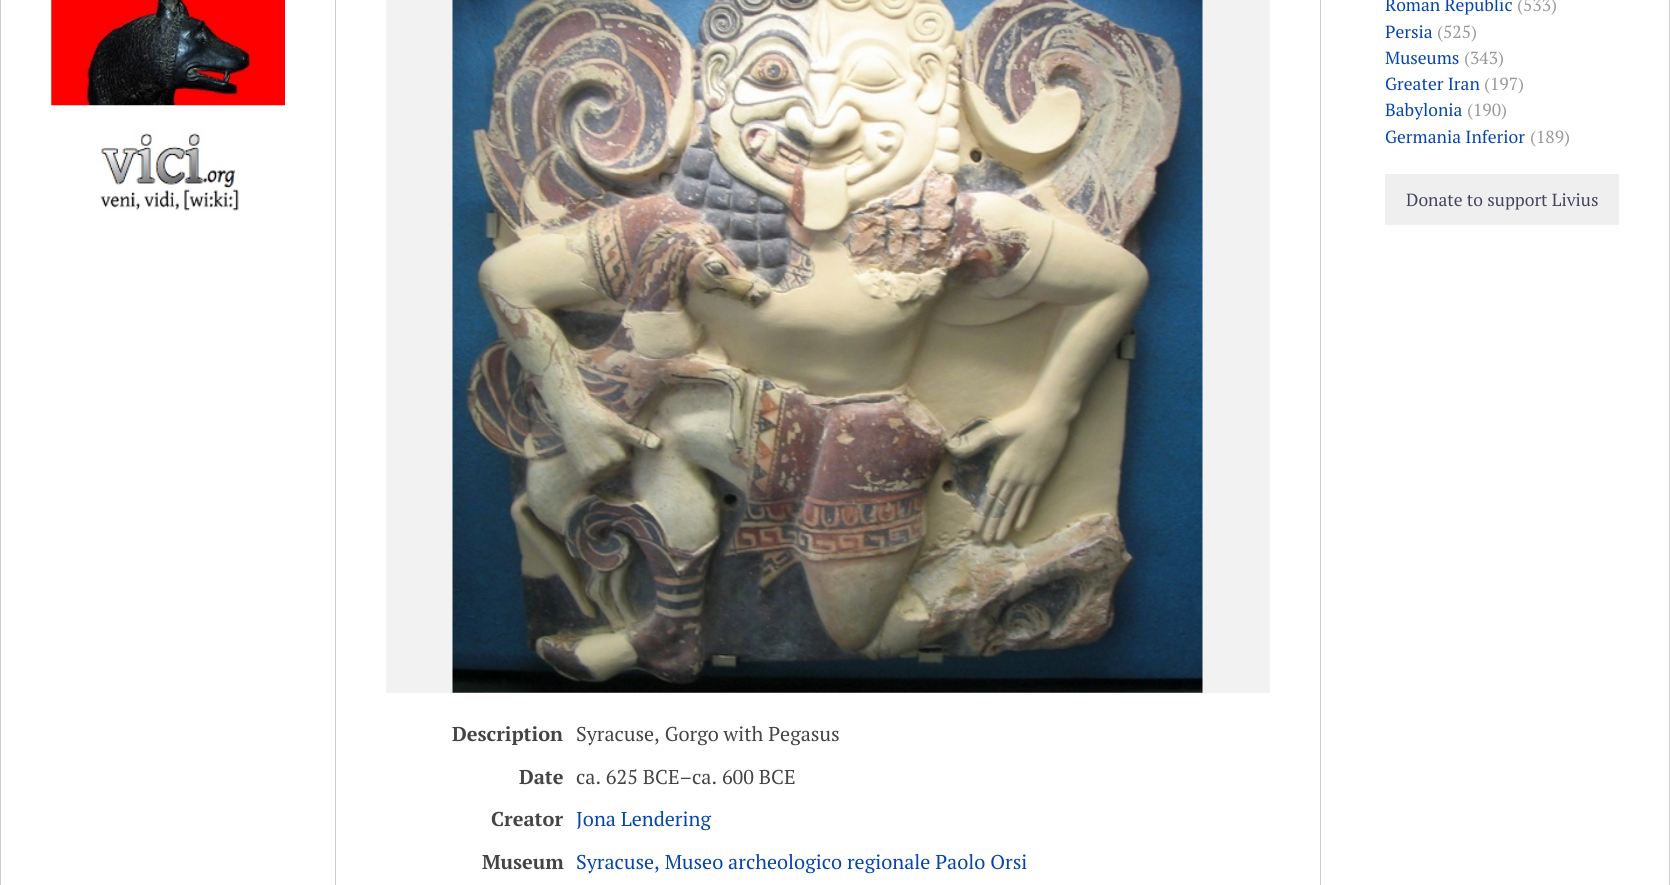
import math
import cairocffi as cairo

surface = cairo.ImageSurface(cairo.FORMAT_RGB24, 1670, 885)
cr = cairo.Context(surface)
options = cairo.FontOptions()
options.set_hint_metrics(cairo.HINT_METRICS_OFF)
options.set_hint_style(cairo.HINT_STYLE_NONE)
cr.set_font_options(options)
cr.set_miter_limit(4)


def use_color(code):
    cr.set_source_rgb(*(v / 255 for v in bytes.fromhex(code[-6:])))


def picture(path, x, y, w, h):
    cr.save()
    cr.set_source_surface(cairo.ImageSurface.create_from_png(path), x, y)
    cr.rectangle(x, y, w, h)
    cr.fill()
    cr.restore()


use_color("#ffffff")
cr.paint()
use_color("#cccccc")
cr.rectangle(1669, 0, 1, 885)
cr.fill()
cr.rectangle(0, 0, 1, 885)
cr.fill()
picture("img1.png", 51, 0, 234, 106)
picture("img2.png", 100, 133, 139, 78)
cr.select_font_face("PT Serif")
cr.set_font_size(17.5)
use_color("#0645ad")
cr.move_to(1385, 11)
cr.show_text("Roman Republic")
use_color("#999999")
cr.move_to(1517, 11)
cr.show_text("(533)")
use_color("#0645ad")
cr.move_to(1385, 38)
cr.show_text("Persia")
use_color("#999999")
cr.move_to(1437, 38)
cr.show_text("(525)")
use_color("#0645ad")
cr.move_to(1385, 64)
cr.show_text("Museums")
use_color("#999999")
cr.move_to(1464, 64)
cr.show_text("(343)")
use_color("#0645ad")
cr.move_to(1385, 90)
cr.show_text("Greater Iran")
use_color("#999999")
cr.move_to(1484, 90)
cr.show_text("(197)")
use_color("#0645ad")
cr.move_to(1385, 116)
cr.show_text("Babylonia")
use_color("#999999")
cr.move_to(1467, 116)
cr.show_text("(190)")
use_color("#0645ad")
cr.move_to(1385, 143)
cr.show_text("Germania Inferior")
use_color("#999999")
cr.move_to(1530, 143)
cr.show_text("(189)")
use_color("#efefef")
cr.rectangle(1385, 174, 234, 51)
cr.fill()
use_color("#44445e")
cr.move_to(1406, 206)
cr.show_text("Donate to support Livius")
use_color("#cccccc")
cr.rectangle(1320, 0, 1, 885)
cr.fill()
cr.rectangle(335, 0, 1, 885)
cr.fill()
use_color("#f2f2f2")
cr.rectangle(386, 0, 884, 693)
cr.fill()
picture("img3.png", 452, 0, 751, 693)
cr.select_font_face("PT Serif", cairo.FONT_SLANT_NORMAL, cairo.FONT_WEIGHT_BOLD)
cr.set_font_size(20)
use_color("#444444")
cr.move_to(452, 741)
cr.show_text("Description")
cr.select_font_face("PT Serif")
cr.move_to(576, 741)
cr.show_text("Syracuse, Gorgo with Pegasus")
cr.select_font_face("PT Serif", cairo.FONT_SLANT_NORMAL, cairo.FONT_WEIGHT_BOLD)
cr.move_to(519, 784)
cr.show_text("Date")
cr.select_font_face("PT Serif")
cr.move_to(576, 784)
cr.show_text("ca. 625 BCE–ca. 600 BCE")
cr.select_font_face("PT Serif", cairo.FONT_SLANT_NORMAL, cairo.FONT_WEIGHT_BOLD)
cr.move_to(491, 826)
cr.show_text("Creator")
cr.select_font_face("PT Serif")
use_color("#0645ad")
cr.move_to(576, 826)
cr.show_text("Jona Lendering")
cr.select_font_face("PT Serif", cairo.FONT_SLANT_NORMAL, cairo.FONT_WEIGHT_BOLD)
use_color("#444444")
cr.move_to(482, 869)
cr.show_text("Museum")
cr.select_font_face("PT Serif")
use_color("#0645ad")
cr.move_to(576, 869)
cr.show_text("Syracuse, Museo archeologico regionale Paolo Orsi")
surface.write_to_png("result.png")
